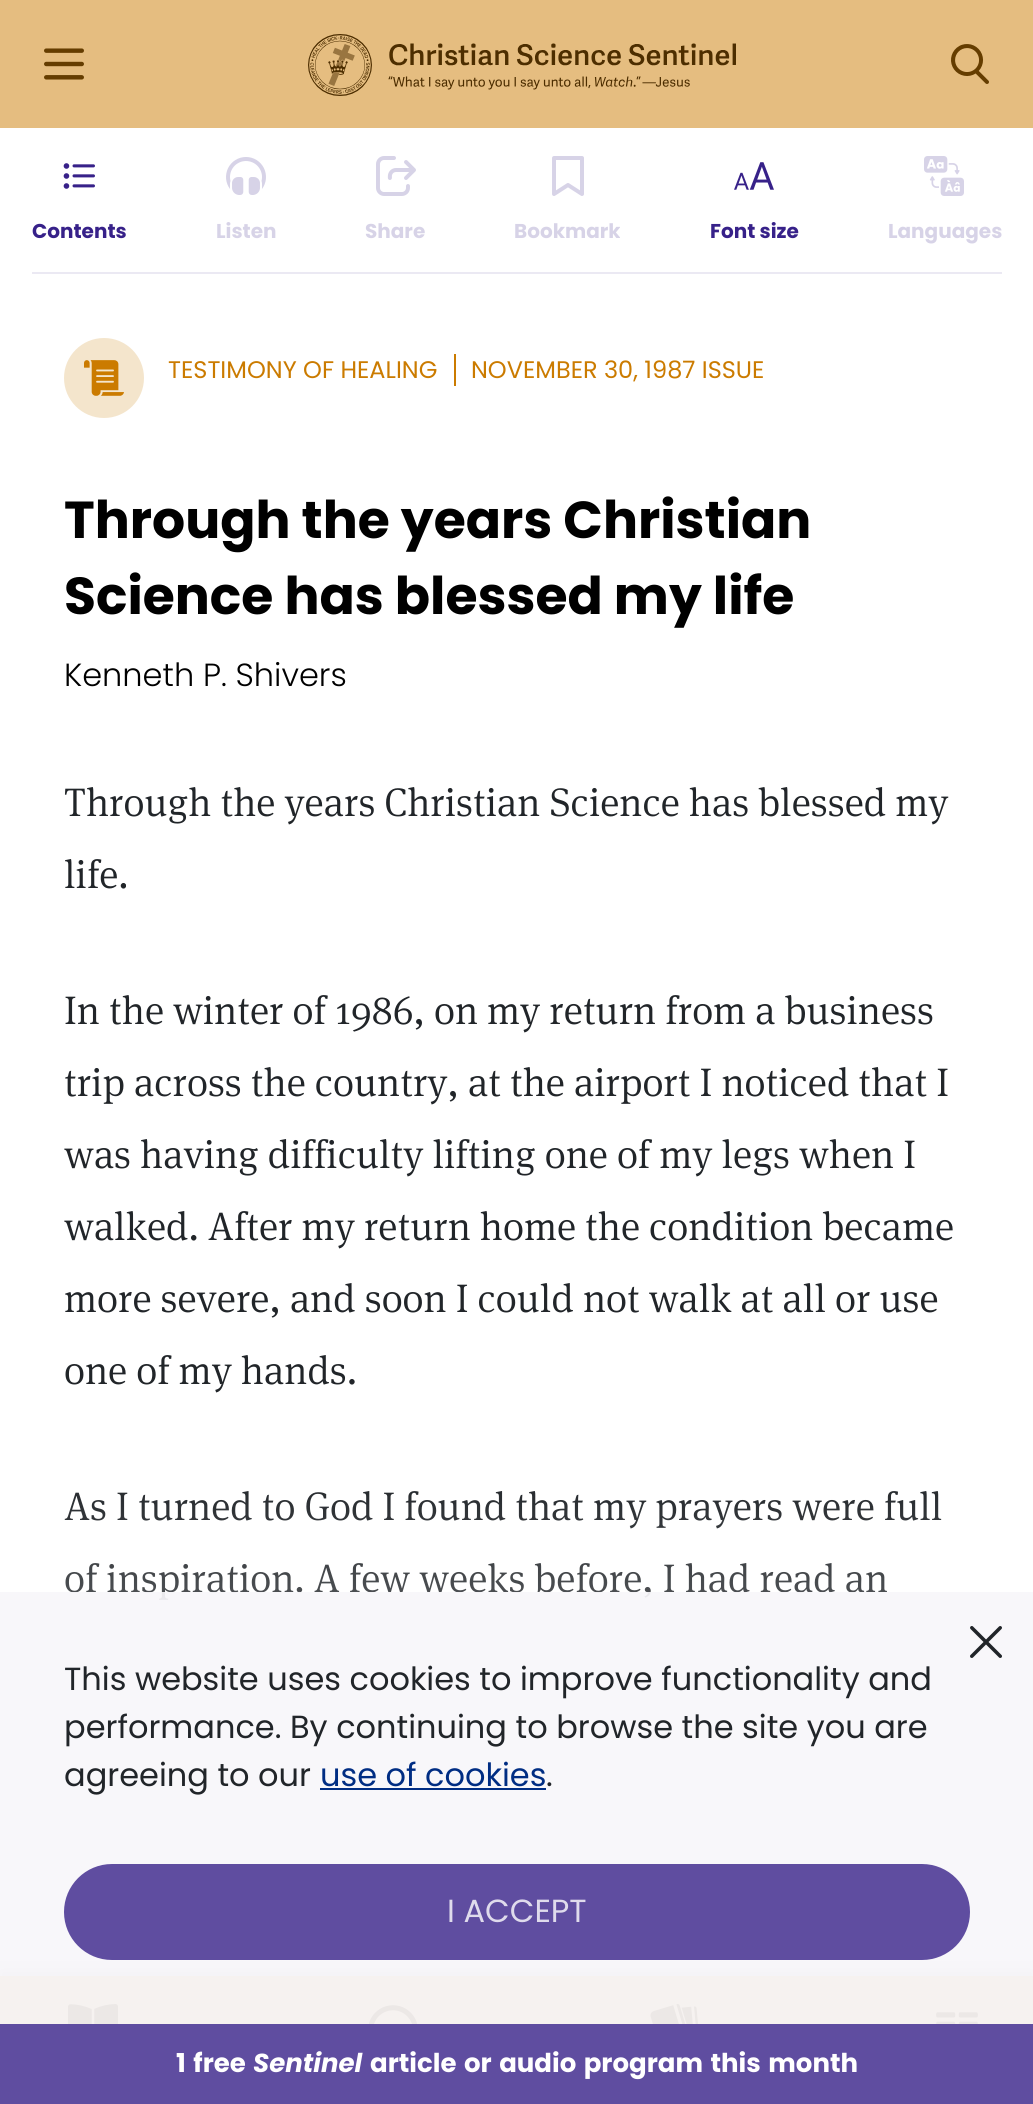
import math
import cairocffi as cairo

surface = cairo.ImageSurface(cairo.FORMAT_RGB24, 1033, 2104)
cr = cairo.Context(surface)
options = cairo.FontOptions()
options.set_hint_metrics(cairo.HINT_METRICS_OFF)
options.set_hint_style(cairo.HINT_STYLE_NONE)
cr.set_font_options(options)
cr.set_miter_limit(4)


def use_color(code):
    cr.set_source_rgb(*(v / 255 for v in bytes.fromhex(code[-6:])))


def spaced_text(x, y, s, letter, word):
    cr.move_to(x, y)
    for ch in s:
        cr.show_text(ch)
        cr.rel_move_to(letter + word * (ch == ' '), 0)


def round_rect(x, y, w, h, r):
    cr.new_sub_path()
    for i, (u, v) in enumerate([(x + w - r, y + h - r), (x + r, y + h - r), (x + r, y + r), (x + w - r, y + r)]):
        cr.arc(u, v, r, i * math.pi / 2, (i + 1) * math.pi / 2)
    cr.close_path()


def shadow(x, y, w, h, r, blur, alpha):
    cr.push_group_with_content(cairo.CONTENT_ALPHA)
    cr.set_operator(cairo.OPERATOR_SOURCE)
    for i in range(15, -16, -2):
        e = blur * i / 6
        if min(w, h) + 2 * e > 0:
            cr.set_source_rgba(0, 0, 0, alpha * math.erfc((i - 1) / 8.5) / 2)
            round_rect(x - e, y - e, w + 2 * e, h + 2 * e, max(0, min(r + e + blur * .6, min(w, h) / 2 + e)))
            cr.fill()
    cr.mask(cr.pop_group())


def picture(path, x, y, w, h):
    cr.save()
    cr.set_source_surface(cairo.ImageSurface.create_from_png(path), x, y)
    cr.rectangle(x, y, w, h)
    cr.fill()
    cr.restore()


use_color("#ffffff")
cr.paint()
use_color("#e5bd80")
cr.rectangle(0, 0, 1033, 128)
cr.fill()
picture("img1.png", 44, 48, 40, 32)
picture("img2.png", 308, 34, 428, 62)
picture("img3.png", 951, 44, 38, 40)
use_color("#ebe9f3")
cr.rectangle(32, 272, 970, 2)
cr.fill()
picture("img4.png", 63, 163, 32, 26)
cr.select_font_face("Poppins", cairo.FONT_SLANT_NORMAL, cairo.FONT_WEIGHT_BOLD)
cr.set_font_size(20)
use_color("#372189")
cr.move_to(32, 238)
cr.show_text("Contents")
picture("img5.png", 226, 157, 40, 38)
use_color("#d7d3e7")
cr.move_to(216, 238)
cr.show_text("Listen")
picture("img6.png", 376, 156, 40, 40)
cr.move_to(365, 238)
cr.show_text("Share")
picture("img7.png", 552, 156, 32, 40)
cr.save()
cr.rectangle(514, 216, 106, 32)
cr.clip()
cr.move_to(514, 238)
cr.show_text("Bookmark")
cr.restore()
picture("img8.png", 734, 162, 40, 28)
use_color("#372189")
cr.move_to(710, 238)
cr.show_text("Font size")
picture("img9.png", 924, 156, 40, 40)
use_color("#d7d3e7")
cr.move_to(888, 238)
cr.show_text("Languages")
use_color("#f4e5cc")
cr.new_path()
cr.arc(104, 378, 40, 0, 2 * math.pi)
cr.fill()
picture("img10.png", 84, 360, 40, 36)
cr.select_font_face("Poppins")
cr.set_font_size(24)
use_color("#cb7b00")
cr.move_to(168, 378)
cr.show_text("TESTIMONY OF HEALING")
cr.rectangle(454, 354, 2, 32)
cr.fill()
cr.move_to(471, 378)
cr.show_text("NOVEMBER 30, 1987 ISSUE")
cr.select_font_face("Poppins", cairo.FONT_SLANT_NORMAL, cairo.FONT_WEIGHT_BOLD)
cr.set_font_size(52)
use_color("#000000")
cr.move_to(64, 538)
cr.show_text("Through the years Christian")
cr.move_to(64, 614)
cr.show_text("Science has blessed my life")
cr.select_font_face("Poppins Light")
cr.set_font_size(32)
cr.move_to(64, 686)
cr.show_text("Kenneth P. Shivers")
cr.select_font_face("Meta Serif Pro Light")
cr.set_font_size(40)
use_color("#212529")
cr.move_to(64, 816)
cr.show_text("Through the years Christian Science has blessed my")
cr.move_to(64, 888)
cr.show_text("life.")
cr.move_to(64, 1024)
cr.show_text("In the winter of 1986, on my return from a business")
cr.move_to(64, 1096)
cr.show_text("trip across the country, at the airport I noticed that I")
cr.move_to(64, 1168)
cr.show_text("was having difficulty lifting one of my legs when I")
cr.move_to(64, 1240)
cr.show_text("walked. After my return home the condition became")
cr.move_to(64, 1312)
cr.show_text("more severe, and soon I could not walk at all or use")
cr.move_to(64, 1384)
cr.show_text("one of my hands.")
cr.move_to(64, 1520)
cr.show_text("As I turned to God I found that my prayers were full")
cr.move_to(64, 1592)
cr.show_text("of inspiration. A few weeks before, I had read an")
gradient = cairo.LinearGradient(517, 1470, 517, 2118)
gradient.add_color_stop_rgba(0, 1, 1, 1, 0)
gradient.add_color_stop_rgba(1, 1, 1, 1, 1)
cr.set_source(gradient)
cr.rectangle(64, 1491, 878, 109)
cr.fill()
use_color("#000000")
shadow(0, 1970, 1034, 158, 0, 8, 0.2)
use_color("#e5bd80")
cr.rectangle(0, 1976, 1033, 48)
cr.fill()
picture("img12.png", 68, 2004, 50, 20)
picture("img13.png", 368, 2005, 50, 19)
picture("img14.png", 650, 2004, 48, 20)
picture("img15.png", 936, 2012, 42, 12)
cr.set_source_rgba(0.969, 0.965, 0.98, 0.92)
cr.rectangle(0, 1592, 1033, 432)
cr.fill()
picture("img11.png", 970, 1626, 32, 32)
cr.select_font_face("Poppins")
cr.set_font_size(32)
use_color("#212529")
cr.move_to(64, 1690)
cr.show_text("This website uses cookies to improve functionality and")
cr.move_to(64, 1738)
cr.show_text("performance. By continuing to browse the site you are")
cr.move_to(64, 1786)
cr.show_text("agreeing to our")
use_color("#002d83")
cr.move_to(320, 1786)
cr.show_text("use of cookies")
cr.rectangle(320, 1788, 226, 2)
cr.fill()
use_color("#212529")
cr.move_to(546, 1786)
cr.show_text(".")
use_color("#5f4da0")
round_rect(65, 1865, 904, 94, 47)
cr.fill_preserve()
cr.stroke()
use_color("#dfdbec")
cr.move_to(447, 1922)
cr.show_text("I ACCEPT")
use_color("#5f4da0")
cr.rectangle(0, 2024, 1033, 80)
cr.fill()
cr.select_font_face("Poppins", cairo.FONT_SLANT_NORMAL, cairo.FONT_WEIGHT_BOLD)
cr.set_font_size(26)
use_color("#ffffff")
spaced_text(176, 2072, "1 free", 0, 2)
cr.select_font_face("Poppins", cairo.FONT_SLANT_ITALIC, cairo.FONT_WEIGHT_BOLD)
cr.move_to(253, 2072)
cr.show_text("Sentinel")
cr.select_font_face("Poppins", cairo.FONT_SLANT_NORMAL, cairo.FONT_WEIGHT_BOLD)
spaced_text(370, 2072, "article or audio program this month", 0, 2)
surface.write_to_png("result.png")
